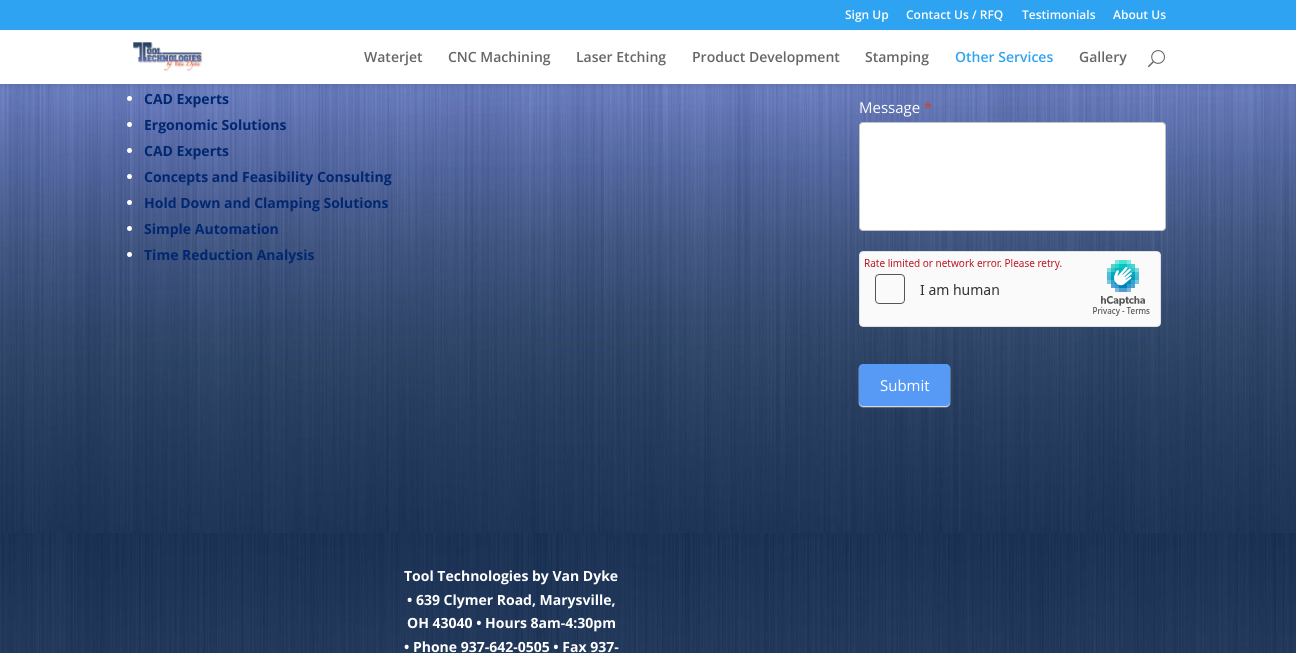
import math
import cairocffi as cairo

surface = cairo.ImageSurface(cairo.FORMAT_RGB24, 1296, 653)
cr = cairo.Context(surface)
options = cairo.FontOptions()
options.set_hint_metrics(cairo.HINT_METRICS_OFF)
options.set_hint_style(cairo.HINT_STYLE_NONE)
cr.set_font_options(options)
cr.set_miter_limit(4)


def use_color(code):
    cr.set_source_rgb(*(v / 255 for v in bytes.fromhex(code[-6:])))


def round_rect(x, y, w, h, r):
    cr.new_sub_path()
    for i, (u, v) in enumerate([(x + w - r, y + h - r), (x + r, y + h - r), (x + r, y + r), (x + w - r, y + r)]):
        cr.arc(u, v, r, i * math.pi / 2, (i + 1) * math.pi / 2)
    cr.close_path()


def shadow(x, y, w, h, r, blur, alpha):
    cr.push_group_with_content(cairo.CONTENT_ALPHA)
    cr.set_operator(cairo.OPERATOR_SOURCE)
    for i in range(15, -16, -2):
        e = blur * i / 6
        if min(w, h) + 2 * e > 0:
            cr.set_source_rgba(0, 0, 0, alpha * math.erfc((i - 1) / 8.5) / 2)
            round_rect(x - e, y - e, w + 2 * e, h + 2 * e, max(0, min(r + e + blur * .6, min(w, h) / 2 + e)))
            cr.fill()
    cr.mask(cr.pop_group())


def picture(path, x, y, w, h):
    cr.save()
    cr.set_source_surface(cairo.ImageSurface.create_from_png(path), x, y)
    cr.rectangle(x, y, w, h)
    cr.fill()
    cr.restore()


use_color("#ffffff")
cr.paint()
picture("img3.png", 0, 84, 1296, 449)
use_color("#000000")
shadow(0, 30, 1296, 54, 0, 3.5, 0.1)
use_color("#2ea3f2")
cr.rectangle(0, 0, 1296, 30)
cr.fill()
cr.select_font_face("Open Sans SemiBold")
cr.set_font_size(12)
use_color("#ffffff")
cr.move_to(845, 19)
cr.show_text("Sign Up")
cr.move_to(906, 19)
cr.show_text("Contact Us / RFQ")
cr.move_to(1022, 19)
cr.show_text("Testimonials")
cr.move_to(1113, 19)
cr.show_text("About Us")
cr.rectangle(0, 30, 1296, 54)
cr.fill()
picture("img1.png", 133, 42, 70, 30)
cr.set_font_size(14)
use_color("#666666")
cr.move_to(364, 62)
cr.show_text("Waterjet")
cr.move_to(448, 62)
cr.show_text("CNC Machining")
cr.move_to(576, 62)
cr.show_text("Laser Etching")
cr.move_to(692, 62)
cr.show_text("Product Development")
cr.move_to(865, 62)
cr.show_text("Stamping")
use_color("#2ea3f2")
cr.move_to(955, 62)
cr.show_text("Other Services")
use_color("#666666")
cr.move_to(1079, 62)
cr.show_text("Gallery")
picture("img2.png", 1148, 50, 17, 18)
use_color("#ffffff")
cr.arc(129.5, 98.5, 2.5, 0, 2 * math.pi)
cr.fill()
cr.select_font_face("Open Sans", cairo.FONT_SLANT_NORMAL, cairo.FONT_WEIGHT_BOLD)
use_color("#002770")
cr.move_to(144, 104)
cr.show_text("CAD Experts")
use_color("#ffffff")
cr.new_path()
cr.arc(129.5, 124.5, 2.5, 0, 2 * math.pi)
cr.fill()
use_color("#002770")
cr.move_to(144, 130)
cr.show_text("Ergonomic Solutions")
use_color("#ffffff")
cr.new_path()
cr.arc(129.5, 150.5, 2.5, 0, 2 * math.pi)
cr.fill()
use_color("#002770")
cr.move_to(144, 156)
cr.show_text("CAD Experts")
use_color("#ffffff")
cr.new_path()
cr.arc(129.5, 176.5, 2.5, 0, 2 * math.pi)
cr.fill()
use_color("#002770")
cr.move_to(144, 182)
cr.show_text("Concepts and Feasibility Consulting")
use_color("#ffffff")
cr.new_path()
cr.arc(129.5, 202.5, 2.5, 0, 2 * math.pi)
cr.fill()
use_color("#002770")
cr.move_to(144, 208)
cr.show_text("Hold Down and Clamping Solutions")
use_color("#ffffff")
cr.new_path()
cr.arc(129.5, 228.5, 2.5, 0, 2 * math.pi)
cr.fill()
use_color("#002770")
cr.move_to(144, 234)
cr.show_text("Simple Automation")
use_color("#ffffff")
cr.new_path()
cr.arc(129.5, 254.5, 2.5, 0, 2 * math.pi)
cr.fill()
use_color("#002770")
cr.move_to(144, 260)
cr.show_text("Time Reduction Analysis")
cr.select_font_face("Open Sans")
cr.set_font_size(15)
use_color("#ffffff")
cr.move_to(859, 113)
cr.show_text("Message")
cr.select_font_face("Open Sans", cairo.FONT_SLANT_NORMAL, cairo.FONT_WEIGHT_BOLD)
use_color("#b94a48")
cr.move_to(924, 113)
cr.show_text("*")
use_color("#ffffff")
round_rect(859.5, 122.5, 306, 108, 3.5)
cr.fill_preserve()
use_color("#bfc3c8")
cr.set_line_width(1)
cr.stroke()
picture("img4.png", 859, 251, 302, 76)
use_color("#eeeeee")
shadow(859, 365, 91, 42, 4, 0.5, 1)
use_color("#579af6")
round_rect(859.5, 364.5, 90, 41, 3.5)
cr.fill_preserve()
cr.stroke()
cr.select_font_face("Open Sans")
use_color("#ffffff")
cr.move_to(880, 391)
cr.show_text("Submit")
picture("img5.png", 0, 533, 1296, 120)
cr.select_font_face("Open Sans", cairo.FONT_SLANT_NORMAL, cairo.FONT_WEIGHT_BOLD)
cr.set_font_size(14)
cr.move_to(404, 581)
cr.show_text("Tool Technologies by Van Dyke")
cr.move_to(407, 605)
cr.show_text("• 639 Clymer Road, Marysville,")
cr.move_to(407, 628)
cr.show_text("OH 43040 • Hours 8am-4:30pm")
cr.move_to(404, 652)
cr.show_text("• Phone 937-642-0505 • Fax 937-")
surface.write_to_png("result.png")
